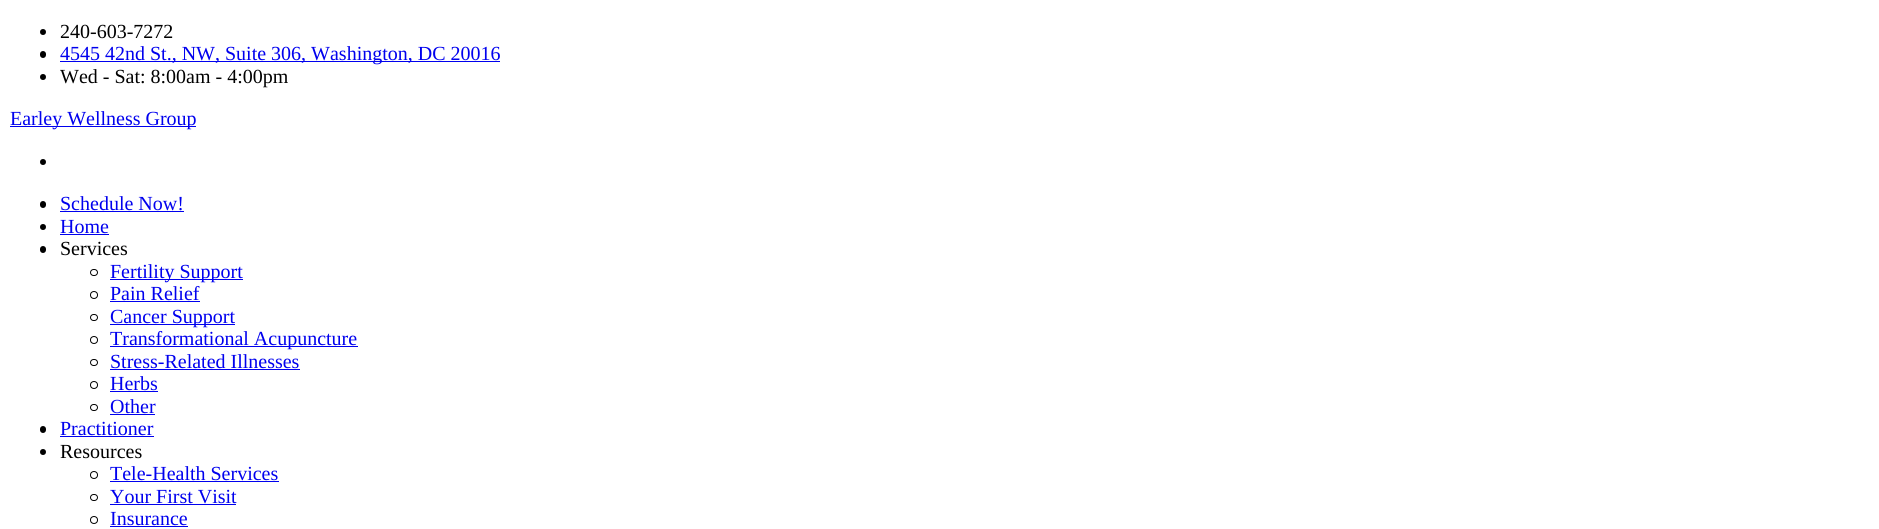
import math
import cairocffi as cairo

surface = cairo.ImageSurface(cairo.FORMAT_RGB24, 1879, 529)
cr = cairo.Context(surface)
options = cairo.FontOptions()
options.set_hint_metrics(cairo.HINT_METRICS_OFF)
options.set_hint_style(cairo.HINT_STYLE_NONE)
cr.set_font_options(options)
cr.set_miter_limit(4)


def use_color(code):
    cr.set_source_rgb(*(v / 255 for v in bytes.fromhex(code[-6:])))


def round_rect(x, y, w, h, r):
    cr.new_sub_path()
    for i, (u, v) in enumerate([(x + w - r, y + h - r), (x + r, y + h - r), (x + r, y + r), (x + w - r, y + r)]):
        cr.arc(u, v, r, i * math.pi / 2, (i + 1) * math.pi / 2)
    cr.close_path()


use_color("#ffffff")
cr.paint()
use_color("#000000")
cr.arc(43, 32, 3, 0, 2 * math.pi)
cr.fill()
cr.select_font_face("Liberation Serif")
cr.set_font_size(20)
cr.move_to(60, 38)
cr.show_text("240-603-7272")
round_rect(40, 51, 6, 7, 3)
cr.fill()
use_color("#0000ee")
cr.rectangle(60, 61, 440, 1)
cr.fill()
cr.move_to(60, 60)
cr.show_text("4545 42nd St., NW, Suite 306, Washington, DC 20016")
use_color("#000000")
cr.new_path()
cr.arc(43, 77, 3, 0, 2 * math.pi)
cr.fill()
cr.move_to(60, 83)
cr.show_text("Wed - Sat: 8:00am - 4:00pm")
use_color("#0000ee")
cr.rectangle(10, 126, 186, 1)
cr.fill()
cr.move_to(10, 125)
cr.show_text("Earley Wellness Group")
use_color("#000000")
cr.new_path()
cr.arc(43, 162, 3, 0, 2 * math.pi)
cr.fill()
round_rect(40, 201, 6, 7, 3)
cr.fill()
use_color("#0000ee")
cr.move_to(60, 210)
cr.show_text("Schedule Now!")
cr.rectangle(60, 211, 124, 1)
cr.fill()
use_color("#000000")
cr.arc(43, 227, 3, 0, 2 * math.pi)
cr.fill()
use_color("#0000ee")
cr.move_to(60, 233)
cr.show_text("Home")
cr.rectangle(60, 234, 49, 1)
cr.fill()
use_color("#000000")
round_rect(40, 246, 6, 7, 3)
cr.fill()
cr.move_to(60, 255)
cr.show_text("Services")
round_rect(90.5, 269.5, 7, 6, 3)
cr.set_line_width(1)
cr.stroke()
use_color("#0000ee")
cr.rectangle(110, 279, 133, 1)
cr.fill()
cr.move_to(110, 278)
cr.show_text("Fertility Support")
cr.new_path()
cr.arc(94, 295, 3.5, 0, 2 * math.pi)
use_color("#000000")
cr.stroke()
use_color("#0000ee")
cr.move_to(110, 300)
cr.show_text("Pain Relief")
cr.rectangle(110, 301, 90, 1)
cr.fill()
round_rect(90.5, 314.5, 7, 6, 3)
use_color("#000000")
cr.stroke()
use_color("#0000ee")
cr.rectangle(110, 324, 125, 1)
cr.fill()
cr.move_to(110, 323)
cr.show_text("Cancer Support")
cr.new_path()
cr.arc(94, 340, 3.5, 0, 2 * math.pi)
use_color("#000000")
cr.stroke()
use_color("#0000ee")
cr.rectangle(110, 346, 248, 1)
cr.fill()
cr.move_to(110, 345)
cr.show_text("Transformational Acupuncture")
round_rect(90.5, 359.5, 7, 6, 3)
use_color("#000000")
cr.stroke()
use_color("#0000ee")
cr.move_to(110, 368)
cr.show_text("Stress-Related Illnesses")
cr.rectangle(110, 369, 190, 1)
cr.fill()
cr.arc(94, 385, 3.5, 0, 2 * math.pi)
use_color("#000000")
cr.stroke()
use_color("#0000ee")
cr.move_to(110, 390)
cr.show_text("Herbs")
cr.rectangle(110, 391, 48, 1)
cr.fill()
round_rect(90.5, 404.5, 7, 6, 3)
use_color("#000000")
cr.stroke()
use_color("#0000ee")
cr.move_to(110, 413)
cr.show_text("Other")
cr.rectangle(110, 414, 45, 1)
cr.fill()
use_color("#000000")
round_rect(40, 426, 6, 7, 3)
cr.fill()
use_color("#0000ee")
cr.move_to(60, 435)
cr.show_text("Practitioner")
cr.rectangle(60, 436, 94, 1)
cr.fill()
use_color("#000000")
cr.arc(43, 452, 3, 0, 2 * math.pi)
cr.fill()
cr.move_to(60, 458)
cr.show_text("Resources")
cr.new_path()
cr.arc(94, 475, 3.5, 0, 2 * math.pi)
cr.stroke()
use_color("#0000ee")
cr.move_to(110, 480)
cr.show_text("Tele-Health Services")
cr.rectangle(110, 481, 169, 1)
cr.fill()
round_rect(90.5, 494.5, 7, 6, 3)
use_color("#000000")
cr.stroke()
use_color("#0000ee")
cr.move_to(110, 503)
cr.show_text("Your First Visit")
cr.rectangle(110, 504, 126, 1)
cr.fill()
cr.arc(94, 520, 3.5, 0, 2 * math.pi)
use_color("#000000")
cr.stroke()
use_color("#0000ee")
cr.move_to(110, 525)
cr.show_text("Insurance")
cr.rectangle(110, 526, 78, 1)
cr.fill()
surface.write_to_png("result.png")
